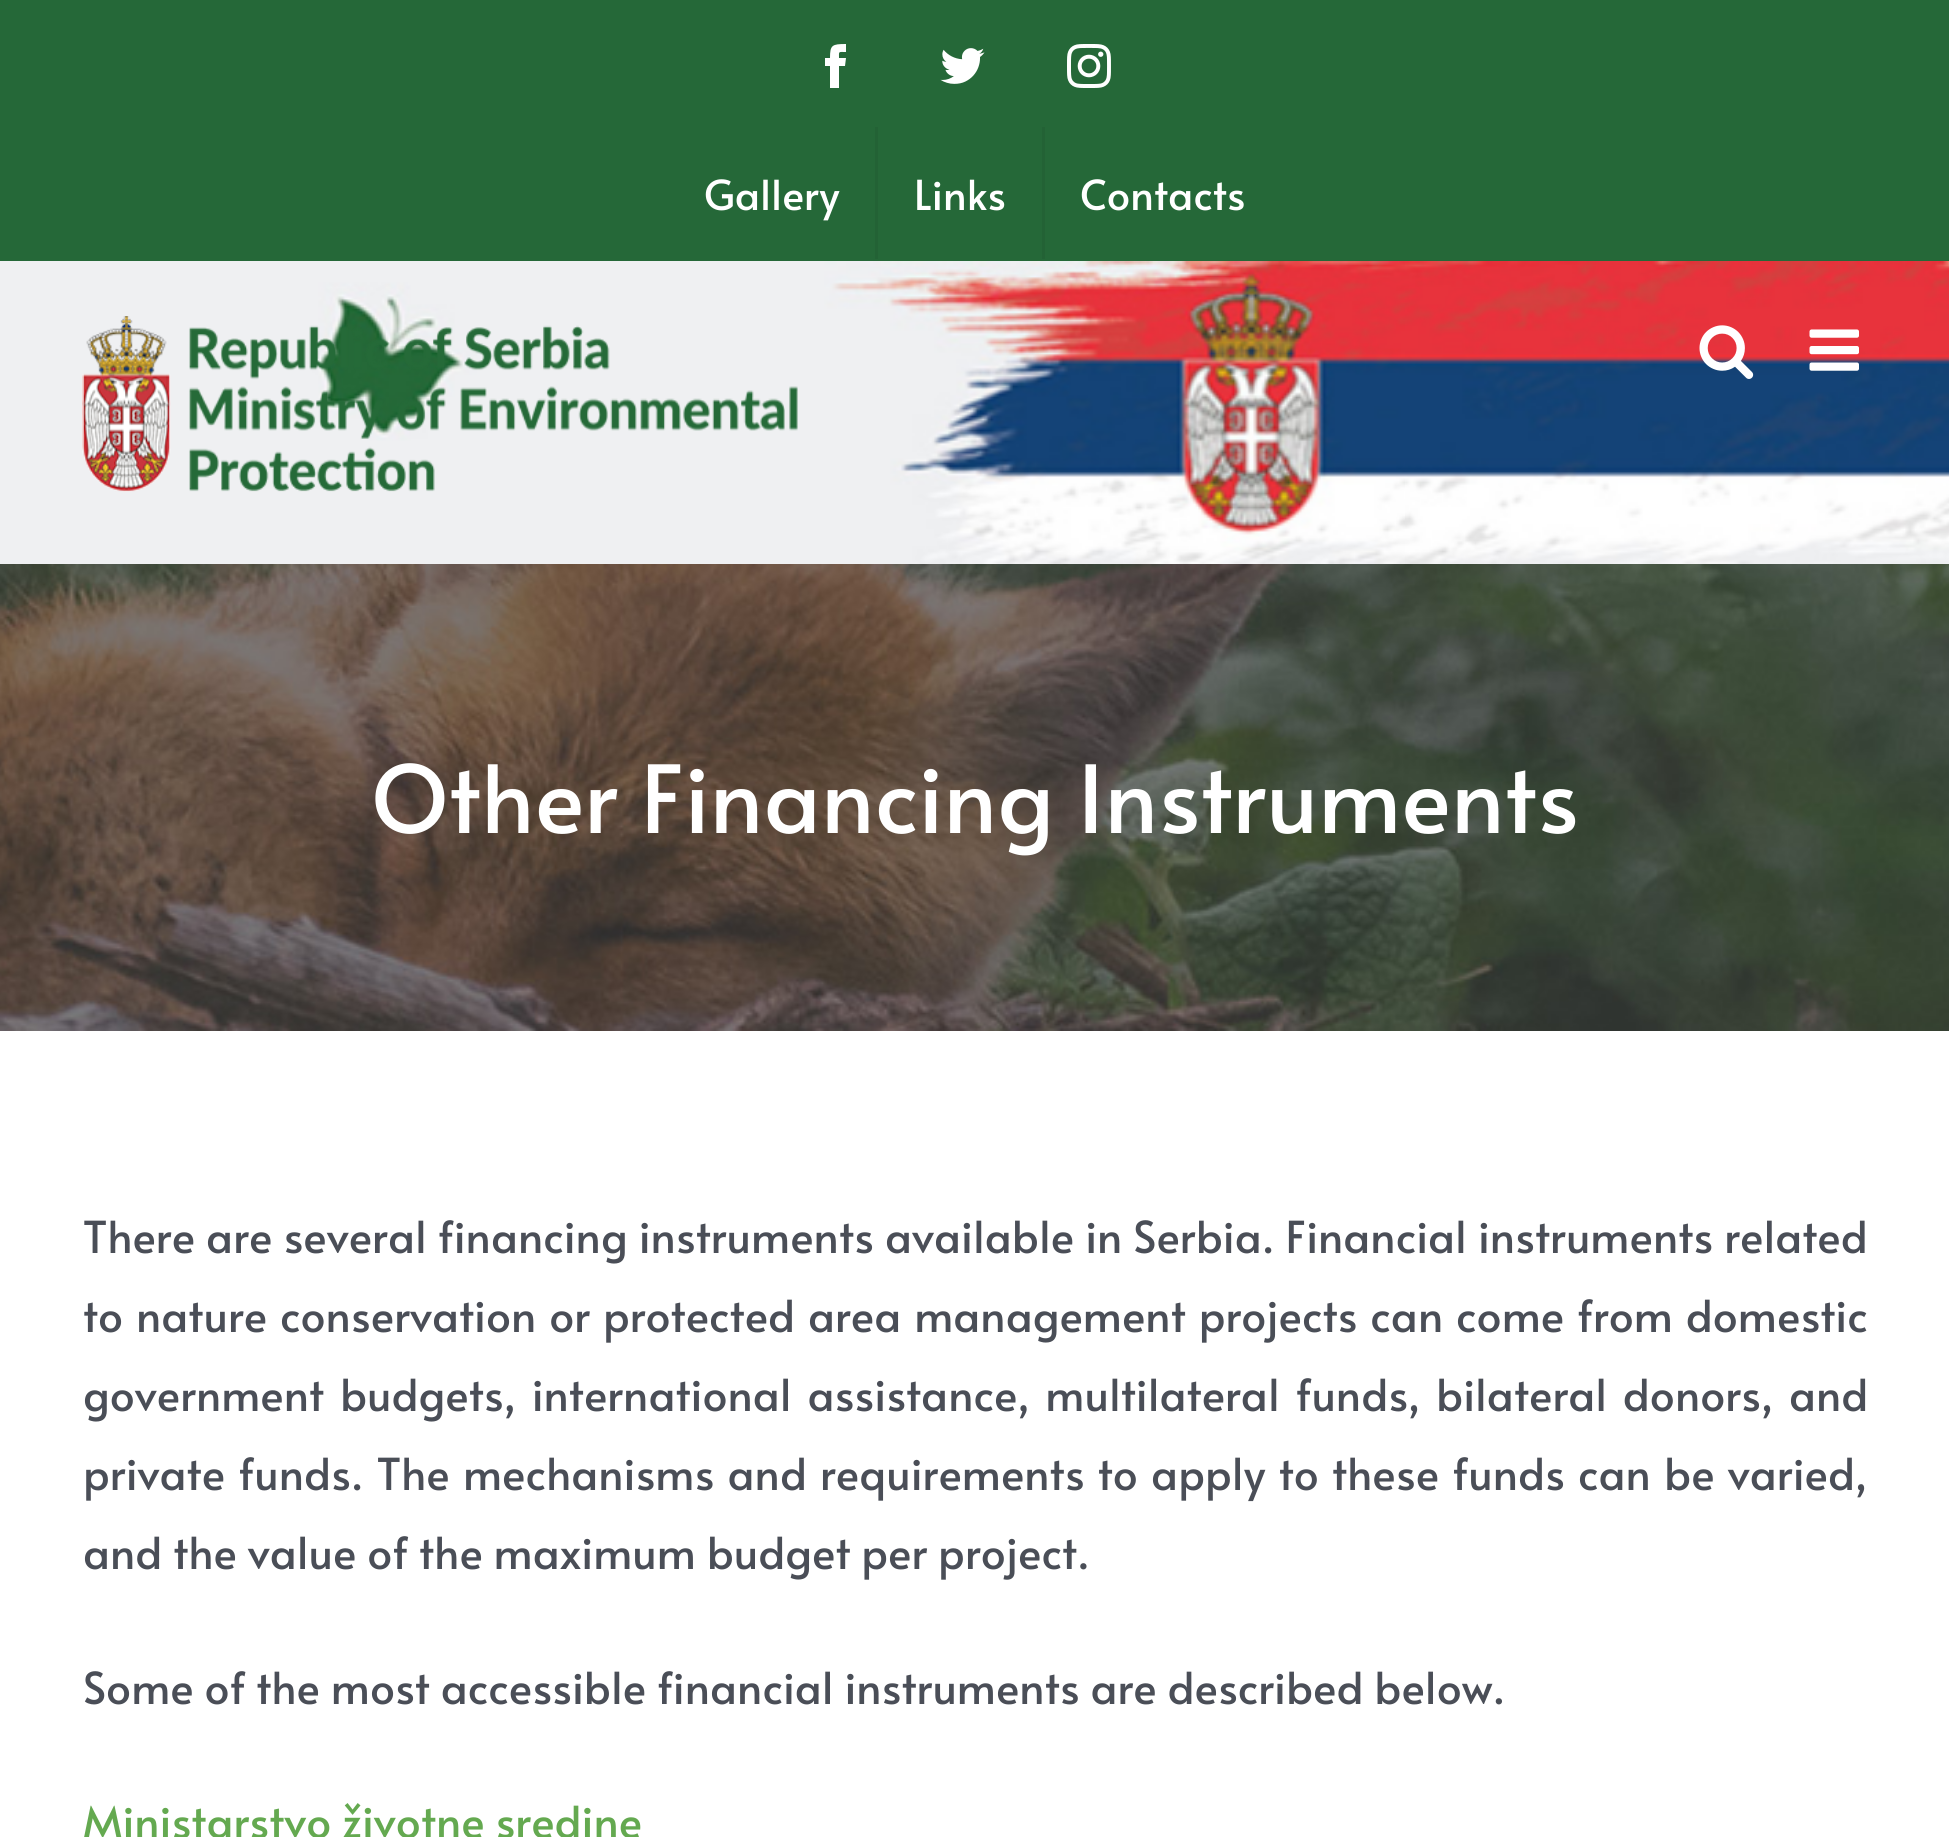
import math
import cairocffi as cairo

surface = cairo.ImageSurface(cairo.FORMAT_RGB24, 1949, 1837)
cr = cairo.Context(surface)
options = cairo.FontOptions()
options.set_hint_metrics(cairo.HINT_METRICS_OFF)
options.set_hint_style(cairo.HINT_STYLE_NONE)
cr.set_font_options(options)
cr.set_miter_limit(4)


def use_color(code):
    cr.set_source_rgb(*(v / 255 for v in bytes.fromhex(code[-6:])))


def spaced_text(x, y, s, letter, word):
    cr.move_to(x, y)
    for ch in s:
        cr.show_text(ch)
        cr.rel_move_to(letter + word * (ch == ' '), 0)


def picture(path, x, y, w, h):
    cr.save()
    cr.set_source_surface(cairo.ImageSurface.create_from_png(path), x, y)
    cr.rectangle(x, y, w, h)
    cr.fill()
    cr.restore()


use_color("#ffffff")
cr.paint()
use_color("#256838")
cr.rectangle(0, 0, 1949, 261)
cr.fill()
use_color("#ffffff")
cr.new_path()
cr.move_to(839, 88)
cr.line_to(830, 88)
cr.line_to(830, 66)
cr.line_to(825, 66)
cr.line_to(825, 58)
cr.line_to(830, 58)
cr.curve_to(830, 45, 832, 44, 846, 44)
cr.line_to(846, 52)
cr.curve_to(838, 52, 839, 51, 839, 58)
cr.line_to(846, 58)
cr.line_to(845, 66)
cr.line_to(839, 66)
cr.close_path()
cr.fill()
picture("img1.png", 940, 48, 45, 36)
picture("img2.png", 1067, 44, 44, 44)
cr.select_font_face("Alata")
cr.set_font_size(41.25)
cr.move_to(704, 210)
cr.show_text("Gallery")
use_color("#236235")
cr.rectangle(875, 127, 3, 132)
cr.fill()
use_color("#ffffff")
cr.move_to(914, 210)
cr.show_text("Links")
use_color("#236235")
cr.rectangle(1042, 127, 3, 132)
cr.fill()
use_color("#ffffff")
cr.move_to(1080, 210)
cr.show_text("Contacts")
picture("img3.png", 0, 261, 1949, 303)
picture("img4.png", 82, 316, 716, 176)
picture("img5.png", 1699, 325, 55, 54)
picture("img6.png", 1809, 329, 50, 42)
picture("img7.png", 0, 564, 1949, 467)
cr.set_font_size(93.5)
cr.move_to(371, 833)
cr.show_text("Other Financing Instruments")
cr.set_font_size(44)
use_color("#4a4e57")
spaced_text(83, 1253, "There are several financing instruments available in Serbia. Financial instruments related", 0, 0.25)
spaced_text(83, 1332, "to nature conservation or protected area management projects can come from domestic", 0, 2.1)
spaced_text(83, 1411, "government budgets, international assistance, multilateral funds, bilateral donors, and", 0, 5)
spaced_text(83, 1490, "private funds. The mechanisms and requirements to apply to these funds can be varied,", 0, 2.4)
cr.move_to(83, 1569)
cr.show_text("and the value of the maximum budget per project.")
cr.move_to(83, 1704)
cr.show_text("Some of the most accessible financial instruments are described below.")
use_color("#64a950")
cr.move_to(83, 1838)
cr.show_text("Ministarstvo životne sredine")
surface.write_to_png("result.png")
